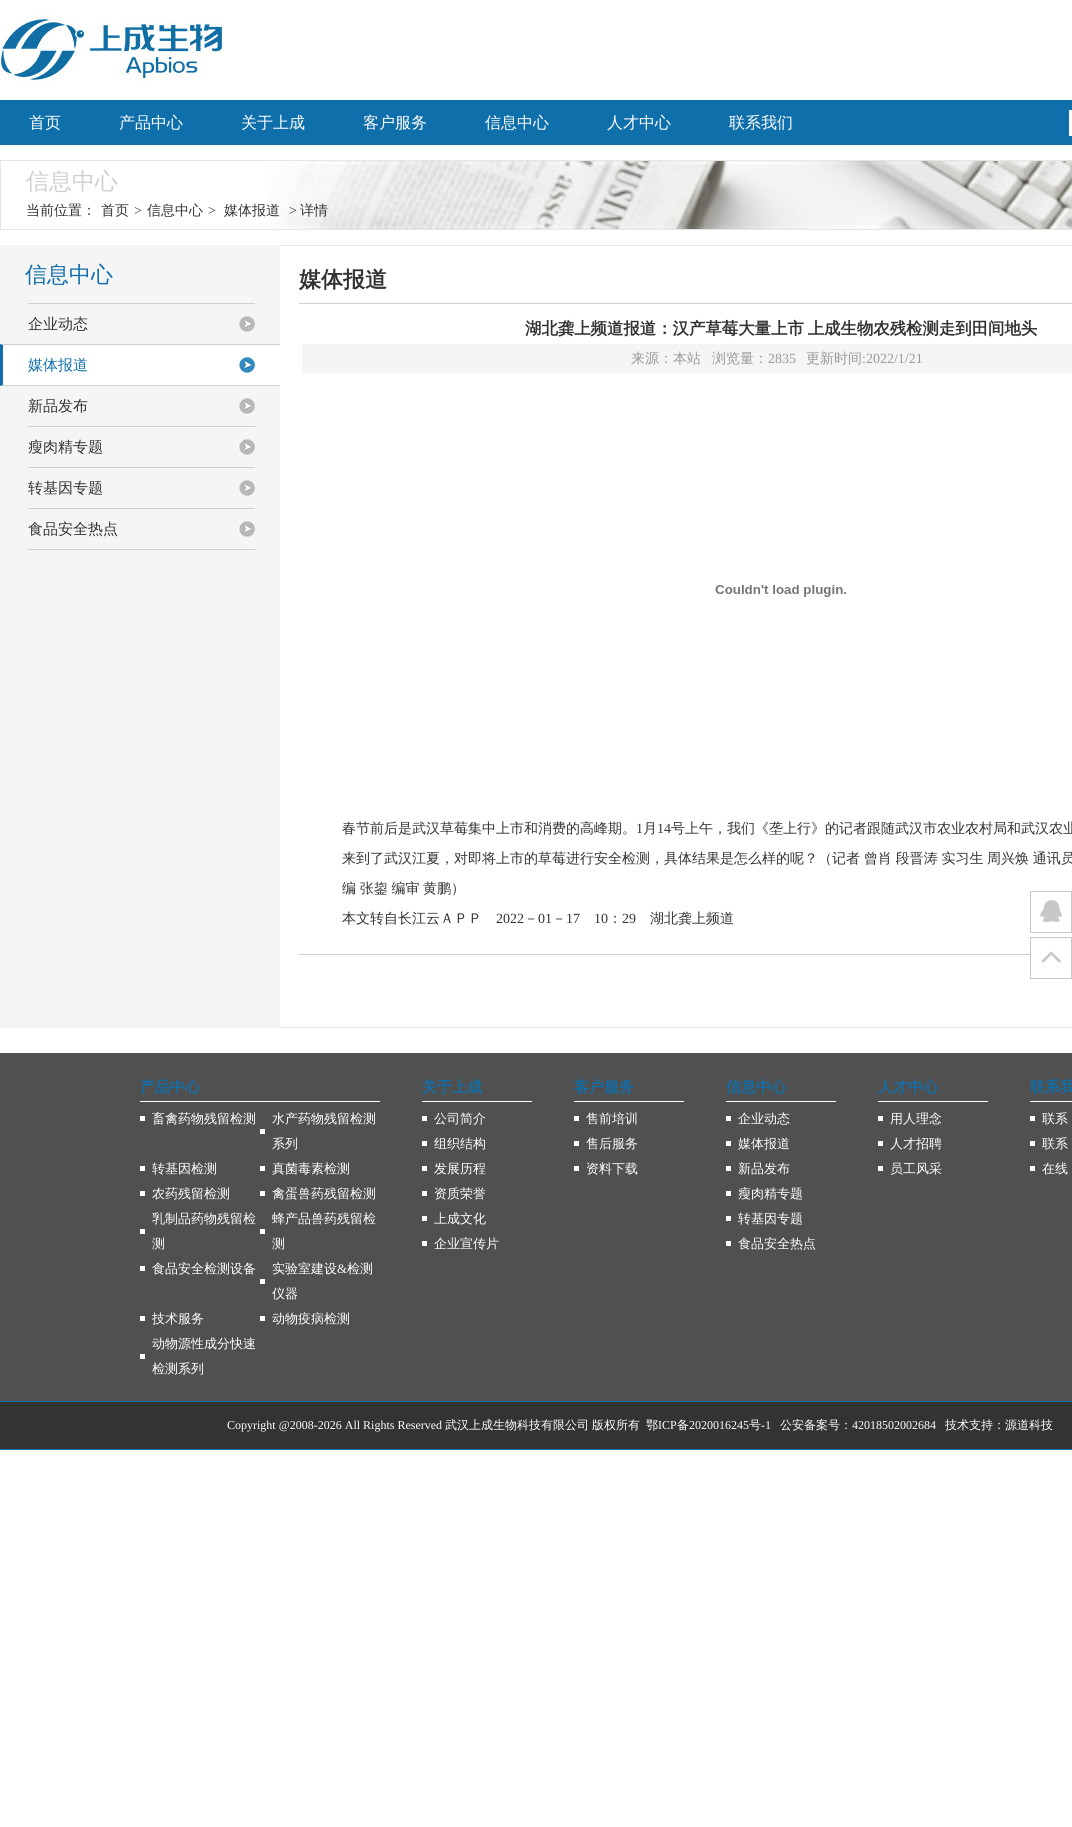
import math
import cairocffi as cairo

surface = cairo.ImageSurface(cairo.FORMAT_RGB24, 1072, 1827)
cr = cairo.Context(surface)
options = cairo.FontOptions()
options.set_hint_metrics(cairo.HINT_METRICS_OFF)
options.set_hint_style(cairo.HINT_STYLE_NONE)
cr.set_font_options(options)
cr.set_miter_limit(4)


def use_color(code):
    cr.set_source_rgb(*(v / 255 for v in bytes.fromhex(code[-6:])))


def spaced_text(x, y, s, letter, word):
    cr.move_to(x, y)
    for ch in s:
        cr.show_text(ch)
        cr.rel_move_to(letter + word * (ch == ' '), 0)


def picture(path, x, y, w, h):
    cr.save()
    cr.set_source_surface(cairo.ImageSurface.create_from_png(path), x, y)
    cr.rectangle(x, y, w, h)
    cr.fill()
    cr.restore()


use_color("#ffffff")
cr.paint()
picture("img1.png", 0, 12, 224, 72)
use_color("#0f6fab")
cr.rectangle(0, 100, 1072, 45)
cr.fill()
cr.select_font_face("WenQuanYi Zen Hei Medium")
cr.set_font_size(16)
use_color("#ffffff")
cr.move_to(29, 128)
cr.show_text("首页")
cr.move_to(119, 128)
cr.show_text("产品中心")
cr.move_to(241, 128)
cr.show_text("关于上成")
cr.move_to(363, 128)
cr.show_text("客户服务")
cr.move_to(485, 128)
cr.show_text("信息中心")
cr.move_to(607, 128)
cr.show_text("人才中心")
cr.move_to(729, 128)
cr.show_text("联系我们")
cr.rectangle(1069, 110, 3, 26)
cr.fill()
cr.rectangle(0.5, 160.5, 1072, 69)
use_color("#e6e6e6")
cr.set_line_width(1)
cr.stroke()
cr.set_font_size(23)
use_color("#d0d0d0")
cr.move_to(26, 189)
cr.show_text("信息中心")
picture("img2.png", 269, 161, 803, 68)
cr.set_font_size(14)
use_color("#333333")
cr.move_to(26, 215)
cr.show_text("当前位置：")
cr.move_to(101, 215)
cr.show_text("首页")
cr.select_font_face("Liberation Serif")
cr.move_to(134, 215)
cr.show_text(">")
cr.select_font_face("WenQuanYi Zen Hei Medium")
cr.move_to(147, 215)
cr.show_text("信息中心")
cr.select_font_face("Liberation Serif")
cr.move_to(208, 215)
cr.show_text(">")
cr.select_font_face("WenQuanYi Zen Hei Medium")
cr.move_to(224, 215)
cr.show_text("媒体报道")
cr.select_font_face("Liberation Serif")
cr.move_to(289, 215)
cr.show_text(">")
cr.select_font_face("WenQuanYi Zen Hei Medium")
cr.move_to(300, 215)
cr.show_text("详情")
use_color("#f5f5f5")
cr.rectangle(0, 245, 280, 783)
cr.fill()
cr.set_font_size(22)
use_color("#0f6fab")
cr.move_to(25, 282)
cr.show_text("信息中心")
picture("img3.png", 239, 316, 16, 16)
use_color("#d0d0d0")
cr.rectangle(28, 303, 227, 1)
cr.fill()
cr.set_font_size(15)
use_color("#333333")
cr.move_to(28, 329)
cr.show_text("企业动态")
use_color("#ffffff")
cr.rectangle(0, 344, 280, 42)
cr.fill()
use_color("#d0d0d0")
cr.new_path()
cr.move_to(0, 344)
cr.line_to(280, 344)
cr.line_to(280, 345)
cr.line_to(3, 345)
cr.close_path()
cr.fill()
cr.new_path()
cr.move_to(280, 386)
cr.line_to(0, 386)
cr.line_to(3, 385)
cr.line_to(280, 385)
cr.close_path()
cr.fill()
use_color("#0f6fab")
cr.new_path()
cr.move_to(0, 386)
cr.line_to(0, 344)
cr.line_to(3, 345)
cr.line_to(3, 385)
cr.close_path()
cr.fill()
picture("img4.png", 239, 357, 16, 16)
cr.move_to(28, 370)
cr.show_text("媒体报道")
picture("img3.png", 239, 398, 16, 16)
use_color("#d0d0d0")
cr.rectangle(28, 426, 227, 1)
cr.fill()
use_color("#333333")
cr.move_to(28, 411)
cr.show_text("新品发布")
picture("img3.png", 239, 439, 16, 16)
use_color("#d0d0d0")
cr.rectangle(28, 467, 227, 1)
cr.fill()
use_color("#333333")
cr.move_to(28, 452)
cr.show_text("瘦肉精专题")
picture("img3.png", 239, 480, 16, 16)
use_color("#d0d0d0")
cr.rectangle(28, 508, 227, 1)
cr.fill()
use_color("#333333")
cr.move_to(28, 493)
cr.show_text("转基因专题")
picture("img3.png", 239, 521, 16, 16)
use_color("#d0d0d0")
cr.rectangle(28, 549, 227, 1)
cr.fill()
use_color("#333333")
cr.move_to(28, 534)
cr.show_text("食品安全热点")
use_color("#e6e6e6")
cr.rectangle(280, 245, 792, 1)
cr.fill()
cr.rectangle(280, 1027, 792, 1)
cr.fill()
use_color("#d0d0d0")
cr.rectangle(299, 303, 773, 1)
cr.fill()
cr.select_font_face("WenQuanYi Zen Hei", cairo.FONT_SLANT_NORMAL, cairo.FONT_WEIGHT_BOLD)
cr.set_font_size(22)
use_color("#333333")
cr.move_to(299, 287)
cr.show_text("媒体报道")
cr.set_font_size(16.4)
spaced_text(525, 334, "湖北龚上频道报道：汉产草莓大量上市 上成生物农残检测走到田间地头", 0, -1)
use_color("#f5f5f5")
cr.rectangle(302, 344, 770, 30)
cr.fill()
cr.select_font_face("WenQuanYi Zen Hei Medium")
cr.set_font_size(14)
use_color("#999999")
cr.move_to(631, 363)
cr.show_text("来源：本站")
cr.move_to(712, 363)
cr.show_text("浏览量：")
cr.select_font_face("Liberation Serif")
cr.move_to(768, 363)
cr.show_text("2835")
cr.select_font_face("WenQuanYi Zen Hei Medium")
cr.move_to(806, 363)
cr.show_text("更新时间")
cr.select_font_face("Liberation Serif")
cr.move_to(862, 363)
cr.show_text(":2022/1/21")
picture("img5.png", 715, 585, 131, 12)
cr.select_font_face("WenQuanYi Zen Hei Medium")
use_color("#333333")
cr.move_to(342, 833)
cr.show_text("春节前后是武汉草莓集中上市和消费的高峰期。")
cr.select_font_face("Liberation Serif")
cr.move_to(636, 833)
cr.show_text("1")
cr.select_font_face("WenQuanYi Zen Hei Medium")
cr.move_to(643, 833)
cr.show_text("月")
cr.select_font_face("Liberation Serif")
cr.move_to(657, 833)
cr.show_text("14")
cr.select_font_face("WenQuanYi Zen Hei Medium")
cr.move_to(671, 833)
cr.show_text("号上午，我们《垄上行》的记者跟随武汉市农业农村局和武汉农业")
cr.move_to(342, 863)
cr.show_text("来到了武汉江夏，对即将上市的草莓进行安全检测，具体结果是怎么样的呢？（记者")
spaced_text(864, 863, "曾肖 段晋涛 实习生 周兴焕 通讯员", 0, -0.5)
spaced_text(342, 893, "编 张鋆 编审 黄鹏）", 0, -0.5)
cr.move_to(342, 923)
cr.show_text("本文转自长江云ＡＰＰ")
cr.select_font_face("Liberation Serif")
cr.move_to(496, 923)
cr.show_text("2022")
cr.select_font_face("WenQuanYi Zen Hei Medium")
cr.move_to(524, 923)
cr.show_text("－")
cr.select_font_face("Liberation Serif")
cr.move_to(538, 923)
cr.show_text("01")
cr.select_font_face("WenQuanYi Zen Hei Medium")
cr.move_to(552, 923)
cr.show_text("－")
cr.select_font_face("Liberation Serif")
cr.move_to(566, 923)
cr.show_text("17")
cr.move_to(594, 923)
cr.show_text("10")
cr.select_font_face("WenQuanYi Zen Hei Medium")
cr.move_to(608, 923)
cr.show_text("：")
cr.select_font_face("Liberation Serif")
cr.move_to(622, 923)
cr.show_text("29")
cr.select_font_face("WenQuanYi Zen Hei Medium")
cr.move_to(650, 923)
cr.show_text("湖北龚上频道")
use_color("#cccccc")
cr.rectangle(299, 954, 731, 1)
cr.fill()
cr.rectangle(1030.5, 891.5, 41, 41)
use_color("#c8c8c8")
cr.stroke()
picture("img6.png", 1040, 900, 22, 23)
cr.rectangle(1030.5, 937.5, 41, 41)
cr.stroke()
picture("img7.png", 1041, 951, 20, 12)
use_color("#505050")
cr.rectangle(0, 1053, 1072, 348)
cr.fill()
use_color("#ffffff")
cr.rectangle(140, 1101, 240, 1)
cr.fill()
cr.select_font_face("WenQuanYi Zen Hei", cairo.FONT_SLANT_NORMAL, cairo.FONT_WEIGHT_BOLD)
cr.set_font_size(15)
use_color("#0f6fab")
cr.move_to(140, 1092)
cr.show_text("产品中心")
use_color("#ffffff")
cr.rectangle(140, 1116, 5, 5)
cr.fill()
cr.select_font_face("WenQuanYi Zen Hei Medium")
cr.set_font_size(13)
cr.move_to(152, 1123)
cr.show_text("畜禽药物残留检测")
cr.rectangle(260, 1129, 5, 5)
cr.fill()
cr.move_to(272, 1123)
cr.show_text("水产药物残留检测")
cr.move_to(272, 1148)
cr.show_text("系列")
cr.rectangle(140, 1166, 5, 5)
cr.fill()
cr.move_to(152, 1173)
cr.show_text("转基因检测")
cr.rectangle(260, 1166, 5, 5)
cr.fill()
cr.move_to(272, 1173)
cr.show_text("真菌毒素检测")
cr.rectangle(140, 1191, 5, 5)
cr.fill()
cr.move_to(152, 1198)
cr.show_text("农药残留检测")
cr.rectangle(260, 1191, 5, 5)
cr.fill()
cr.move_to(272, 1198)
cr.show_text("禽蛋兽药残留检测")
cr.rectangle(140, 1229, 5, 5)
cr.fill()
cr.move_to(152, 1223)
cr.show_text("乳制品药物残留检")
cr.move_to(152, 1248)
cr.show_text("测")
cr.rectangle(260, 1229, 5, 5)
cr.fill()
cr.move_to(272, 1223)
cr.show_text("蜂产品兽药残留检")
cr.move_to(272, 1248)
cr.show_text("测")
cr.rectangle(140, 1266, 5, 5)
cr.fill()
cr.move_to(152, 1273)
cr.show_text("食品安全检测设备")
cr.rectangle(260, 1279, 5, 5)
cr.fill()
cr.move_to(272, 1273)
cr.show_text("实验室建设")
cr.select_font_face("Liberation Serif")
cr.move_to(337, 1273)
cr.show_text("&")
cr.select_font_face("WenQuanYi Zen Hei Medium")
cr.move_to(347, 1273)
cr.show_text("检测")
cr.move_to(272, 1298)
cr.show_text("仪器")
cr.rectangle(140, 1316, 5, 5)
cr.fill()
cr.move_to(152, 1323)
cr.show_text("技术服务")
cr.rectangle(260, 1316, 5, 5)
cr.fill()
cr.move_to(272, 1323)
cr.show_text("动物疫病检测")
cr.rectangle(140, 1354, 5, 5)
cr.fill()
cr.move_to(152, 1348)
cr.show_text("动物源性成分快速")
cr.move_to(152, 1373)
cr.show_text("检测系列")
cr.rectangle(422, 1101, 110, 1)
cr.fill()
cr.select_font_face("WenQuanYi Zen Hei", cairo.FONT_SLANT_NORMAL, cairo.FONT_WEIGHT_BOLD)
cr.set_font_size(15)
use_color("#0f6fab")
cr.move_to(422, 1092)
cr.show_text("关于上成")
use_color("#ffffff")
cr.rectangle(422, 1116, 5, 5)
cr.fill()
cr.select_font_face("WenQuanYi Zen Hei Medium")
cr.set_font_size(13)
cr.move_to(434, 1123)
cr.show_text("公司简介")
cr.rectangle(422, 1141, 5, 5)
cr.fill()
cr.move_to(434, 1148)
cr.show_text("组织结构")
cr.rectangle(422, 1166, 5, 5)
cr.fill()
cr.move_to(434, 1173)
cr.show_text("发展历程")
cr.rectangle(422, 1191, 5, 5)
cr.fill()
cr.move_to(434, 1198)
cr.show_text("资质荣誉")
cr.rectangle(422, 1216, 5, 5)
cr.fill()
cr.move_to(434, 1223)
cr.show_text("上成文化")
cr.rectangle(422, 1241, 5, 5)
cr.fill()
cr.move_to(434, 1248)
cr.show_text("企业宣传片")
cr.rectangle(574, 1101, 110, 1)
cr.fill()
cr.select_font_face("WenQuanYi Zen Hei", cairo.FONT_SLANT_NORMAL, cairo.FONT_WEIGHT_BOLD)
cr.set_font_size(15)
use_color("#0f6fab")
cr.move_to(574, 1092)
cr.show_text("客户服务")
use_color("#ffffff")
cr.rectangle(574, 1116, 5, 5)
cr.fill()
cr.select_font_face("WenQuanYi Zen Hei Medium")
cr.set_font_size(13)
cr.move_to(586, 1123)
cr.show_text("售前培训")
cr.rectangle(574, 1141, 5, 5)
cr.fill()
cr.move_to(586, 1148)
cr.show_text("售后服务")
cr.rectangle(574, 1166, 5, 5)
cr.fill()
cr.move_to(586, 1173)
cr.show_text("资料下载")
cr.rectangle(726, 1101, 110, 1)
cr.fill()
cr.select_font_face("WenQuanYi Zen Hei", cairo.FONT_SLANT_NORMAL, cairo.FONT_WEIGHT_BOLD)
cr.set_font_size(15)
use_color("#0f6fab")
cr.move_to(726, 1092)
cr.show_text("信息中心")
use_color("#ffffff")
cr.rectangle(726, 1116, 5, 5)
cr.fill()
cr.select_font_face("WenQuanYi Zen Hei Medium")
cr.set_font_size(13)
cr.move_to(738, 1123)
cr.show_text("企业动态")
cr.rectangle(726, 1141, 5, 5)
cr.fill()
cr.move_to(738, 1148)
cr.show_text("媒体报道")
cr.rectangle(726, 1166, 5, 5)
cr.fill()
cr.move_to(738, 1173)
cr.show_text("新品发布")
cr.rectangle(726, 1191, 5, 5)
cr.fill()
cr.move_to(738, 1198)
cr.show_text("瘦肉精专题")
cr.rectangle(726, 1216, 5, 5)
cr.fill()
cr.move_to(738, 1223)
cr.show_text("转基因专题")
cr.rectangle(726, 1241, 5, 5)
cr.fill()
cr.move_to(738, 1248)
cr.show_text("食品安全热点")
cr.rectangle(878, 1101, 110, 1)
cr.fill()
cr.select_font_face("WenQuanYi Zen Hei", cairo.FONT_SLANT_NORMAL, cairo.FONT_WEIGHT_BOLD)
cr.set_font_size(15)
use_color("#0f6fab")
cr.move_to(878, 1092)
cr.show_text("人才中心")
use_color("#ffffff")
cr.rectangle(878, 1116, 5, 5)
cr.fill()
cr.select_font_face("WenQuanYi Zen Hei Medium")
cr.set_font_size(13)
cr.move_to(890, 1123)
cr.show_text("用人理念")
cr.rectangle(878, 1141, 5, 5)
cr.fill()
cr.move_to(890, 1148)
cr.show_text("人才招聘")
cr.rectangle(878, 1166, 5, 5)
cr.fill()
cr.move_to(890, 1173)
cr.show_text("员工风采")
cr.rectangle(1030, 1101, 42, 1)
cr.fill()
cr.select_font_face("WenQuanYi Zen Hei", cairo.FONT_SLANT_NORMAL, cairo.FONT_WEIGHT_BOLD)
cr.set_font_size(15)
use_color("#0f6fab")
cr.move_to(1030, 1092)
cr.show_text("联系我")
use_color("#ffffff")
cr.rectangle(1030, 1116, 5, 5)
cr.fill()
cr.select_font_face("WenQuanYi Zen Hei Medium")
cr.set_font_size(13)
cr.move_to(1042, 1123)
cr.show_text("联系")
cr.rectangle(1030, 1141, 5, 5)
cr.fill()
cr.move_to(1042, 1148)
cr.show_text("联系")
cr.rectangle(1030, 1166, 5, 5)
cr.fill()
cr.move_to(1042, 1173)
cr.show_text("在线")
use_color("#333333")
cr.rectangle(0, 1402, 1072, 47)
cr.fill()
use_color("#0f6fab")
cr.rectangle(0, 1401, 1072, 1)
cr.fill()
cr.rectangle(0, 1449, 1072, 1)
cr.fill()
cr.select_font_face("Liberation Serif")
cr.set_font_size(12)
use_color("#ffffff")
cr.move_to(227, 1429)
cr.show_text("Copyright @2008-2026 All Rights Reserved")
cr.select_font_face("WenQuanYi Zen Hei Medium")
cr.move_to(445, 1429)
cr.show_text("武汉上成生物科技有限公司")
cr.move_to(592, 1429)
cr.show_text("版权所有")
cr.move_to(646, 1429)
cr.show_text("鄂")
cr.select_font_face("Liberation Serif")
cr.move_to(658, 1429)
cr.show_text("ICP")
cr.select_font_face("WenQuanYi Zen Hei Medium")
cr.move_to(677, 1429)
cr.show_text("备")
cr.select_font_face("Liberation Serif")
cr.move_to(689, 1429)
cr.show_text("2020016245")
cr.select_font_face("WenQuanYi Zen Hei Medium")
cr.move_to(749, 1429)
cr.show_text("号")
cr.select_font_face("Liberation Serif")
cr.move_to(761, 1429)
cr.show_text("-1")
cr.select_font_face("WenQuanYi Zen Hei Medium")
cr.move_to(780, 1429)
cr.show_text("公安备案号：")
cr.select_font_face("Liberation Serif")
cr.move_to(852, 1429)
cr.show_text("42018502002684")
cr.select_font_face("WenQuanYi Zen Hei Medium")
cr.move_to(945, 1429)
cr.show_text("技术支持：源道科技")
surface.write_to_png("result.png")
